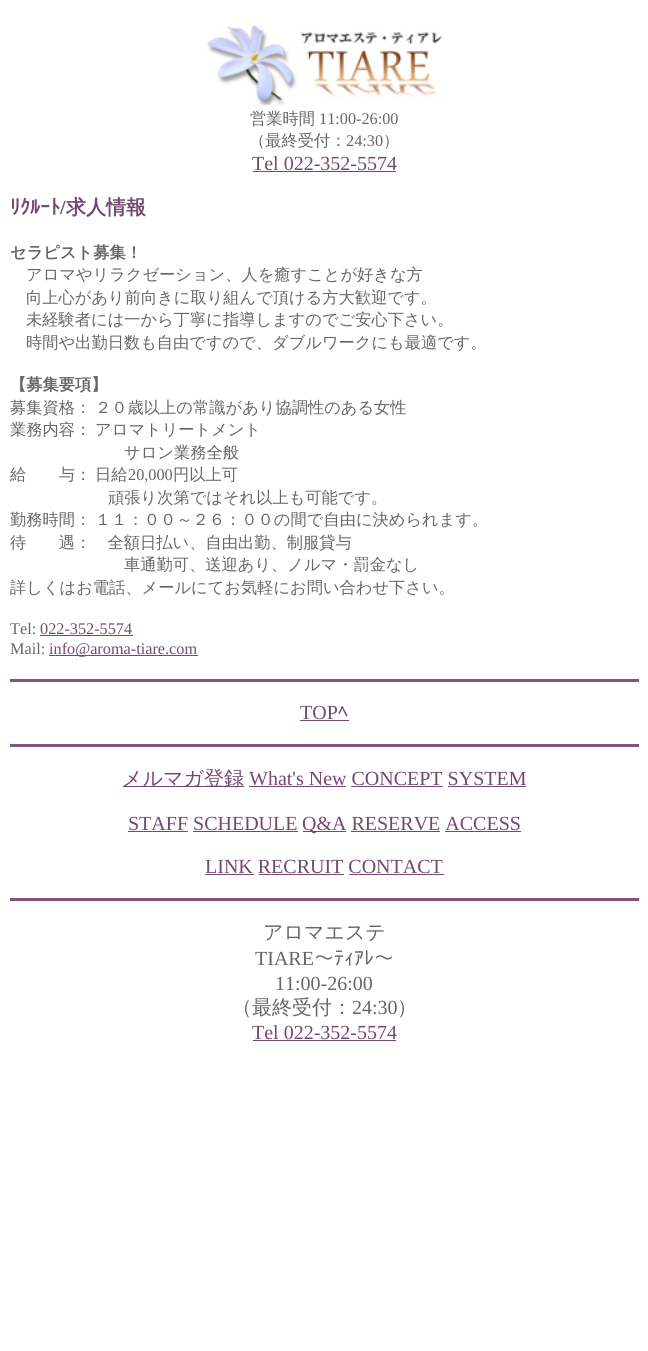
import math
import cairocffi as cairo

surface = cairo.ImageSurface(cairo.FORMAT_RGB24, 648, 1351)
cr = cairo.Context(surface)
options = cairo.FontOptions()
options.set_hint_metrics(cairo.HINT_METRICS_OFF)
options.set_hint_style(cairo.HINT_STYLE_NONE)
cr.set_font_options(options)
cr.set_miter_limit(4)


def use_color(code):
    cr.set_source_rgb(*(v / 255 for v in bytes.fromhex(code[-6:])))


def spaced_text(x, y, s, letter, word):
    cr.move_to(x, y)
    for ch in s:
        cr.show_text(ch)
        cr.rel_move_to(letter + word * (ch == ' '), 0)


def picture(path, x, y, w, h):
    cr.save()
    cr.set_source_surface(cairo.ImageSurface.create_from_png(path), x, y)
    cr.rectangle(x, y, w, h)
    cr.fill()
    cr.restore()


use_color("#ffffff")
cr.paint()
picture("img1.png", 207, 25, 236, 81)
cr.select_font_face("WenQuanYi Zen Hei Medium")
cr.set_font_size(16.25)
use_color("#666666")
cr.move_to(250, 124)
cr.show_text("営業時間")
cr.select_font_face("Liberation Serif")
cr.move_to(319, 124)
cr.show_text("11:00-26:00")
cr.select_font_face("WenQuanYi Zen Hei Medium")
cr.move_to(249, 146)
cr.show_text("（最終受付：")
cr.select_font_face("Liberation Serif")
cr.move_to(346, 146)
cr.show_text("24:30")
cr.select_font_face("WenQuanYi Zen Hei Medium")
cr.move_to(383, 146)
cr.show_text("）")
cr.select_font_face("Liberation Serif")
cr.set_font_size(20)
use_color("#74496f")
cr.move_to(252, 170)
cr.show_text("Tel 022-352-5574")
cr.rectangle(253, 171, 143, 1)
cr.fill()
cr.select_font_face("IPAGothic", cairo.FONT_SLANT_NORMAL, cairo.FONT_WEIGHT_BOLD)
cr.move_to(10, 214)
cr.show_text("ﾘｸﾙｰﾄ")
cr.select_font_face("Liberation Serif", cairo.FONT_SLANT_NORMAL, cairo.FONT_WEIGHT_BOLD)
cr.move_to(60, 214)
cr.show_text("/")
cr.select_font_face("WenQuanYi Zen Hei", cairo.FONT_SLANT_NORMAL, cairo.FONT_WEIGHT_BOLD)
cr.move_to(66, 214)
cr.show_text("求人情報")
cr.set_font_size(16.25)
use_color("#666666")
cr.move_to(10, 258)
cr.show_text("セラピスト募集！")
cr.select_font_face("WenQuanYi Zen Hei Medium")
cr.move_to(26, 280)
cr.show_text("アロマやリラクゼーション、人を癒すことが好きな方")
cr.move_to(26, 303)
cr.show_text("向上心があり前向きに取り組んで頂ける方大歓迎です。")
cr.move_to(26, 325)
cr.show_text("未経験者には一から丁寧に指導しますのでご安心下さい。")
cr.move_to(26, 348)
cr.show_text("時間や出勤日数も自由ですので、ダブルワークにも最適です。")
cr.select_font_face("WenQuanYi Zen Hei", cairo.FONT_SLANT_NORMAL, cairo.FONT_WEIGHT_BOLD)
cr.move_to(10, 390)
cr.show_text("【募集要項】")
cr.select_font_face("WenQuanYi Zen Hei Medium")
spaced_text(10, 413, "募集資格： ２０歳以上の常識があり協調性のある女性", 0, -1)
spaced_text(10, 435, "業務内容： アロマトリートメント", 0, -1)
cr.move_to(124, 458)
cr.show_text("サロン業務全般")
spaced_text(10, 480, "給　　与： 日給", 0, -1)
cr.select_font_face("Liberation Serif")
cr.move_to(128, 480)
cr.show_text("20,000")
cr.select_font_face("WenQuanYi Zen Hei Medium")
cr.move_to(173, 480)
cr.show_text("円以上可")
cr.move_to(108, 503)
cr.show_text("頑張り次第ではそれ以上も可能です。")
spaced_text(10, 525, "勤務時間： １１：００～２６：００の間で自由に決められます。", 0, -1)
cr.move_to(10, 548)
cr.show_text("待　　遇：　全額日払い、自由出勤、制服貸与")
cr.move_to(124, 570)
cr.show_text("車通勤可、送迎あり、ノルマ・罰金なし")
cr.move_to(10, 593)
cr.show_text("詳しくはお電話、メールにてお気軽にお問い合わせ下さい。")
cr.select_font_face("Liberation Serif")
cr.move_to(10, 634)
cr.show_text("Tel:")
use_color("#74496f")
cr.move_to(40, 634)
cr.show_text("022-352-5574")
cr.rectangle(40, 635, 93, 1)
cr.fill()
use_color("#666666")
cr.move_to(10, 654)
cr.show_text("Mail:")
use_color("#74496f")
cr.rectangle(49, 655, 149, 1)
cr.fill()
cr.move_to(49, 654)
cr.show_text("info@aroma-tiare.com")
use_color("#83527d")
cr.rectangle(10, 679, 629, 3)
cr.fill()
cr.set_font_size(20)
use_color("#74496f")
cr.move_to(300, 719)
cr.show_text("TOP")
cr.rectangle(300, 720, 49, 1)
cr.fill()
cr.select_font_face("IPAGothic")
cr.move_to(338, 719)
cr.show_text("ﾍ")
use_color("#83527d")
cr.rectangle(10, 744, 629, 3)
cr.fill()
use_color("#74496f")
cr.rectangle(123, 786, 121, 1)
cr.fill()
cr.select_font_face("WenQuanYi Zen Hei Medium")
cr.move_to(122, 785)
cr.show_text("メルマガ登録")
cr.select_font_face("Liberation Serif")
cr.move_to(249, 785)
cr.show_text("What's New CONCEPT SYSTEM")
cr.rectangle(249, 786, 97, 1)
cr.fill()
cr.rectangle(351, 786, 92, 1)
cr.fill()
cr.rectangle(448, 786, 78, 1)
cr.fill()
cr.move_to(128, 830)
cr.show_text("STAFF SCHEDULE")
cr.rectangle(128, 831, 60, 1)
cr.fill()
cr.rectangle(303, 831, 43, 1)
cr.fill()
cr.move_to(302, 830)
cr.show_text("Q&A RESERVE ACCESS")
cr.rectangle(193, 831, 105, 1)
cr.fill()
cr.rectangle(351, 831, 89, 1)
cr.fill()
cr.rectangle(445, 831, 76, 1)
cr.fill()
cr.move_to(205, 873)
cr.show_text("LINK RECRUIT CONTACT")
cr.rectangle(205, 874, 49, 1)
cr.fill()
cr.rectangle(259, 874, 85, 1)
cr.fill()
cr.rectangle(349, 874, 95, 1)
cr.fill()
use_color("#83527d")
cr.rectangle(10, 898, 629, 3)
cr.fill()
cr.select_font_face("WenQuanYi Zen Hei Medium")
use_color("#666666")
cr.move_to(263, 939)
cr.show_text("アロマエステ")
cr.select_font_face("Liberation Serif")
cr.move_to(255, 965)
cr.show_text("TIARE")
cr.select_font_face("IPAGothic")
cr.move_to(314, 965)
cr.show_text("～ﾃｨｱﾚ～")
cr.select_font_face("Liberation Serif")
cr.move_to(275, 990)
cr.show_text("11:00-26:00")
cr.select_font_face("WenQuanYi Zen Hei Medium")
cr.move_to(232, 1014)
cr.show_text("（最終受付：")
cr.select_font_face("Liberation Serif")
cr.move_to(352, 1014)
cr.show_text("24:30")
cr.select_font_face("WenQuanYi Zen Hei Medium")
cr.move_to(397, 1014)
cr.show_text("）")
cr.select_font_face("Liberation Serif")
use_color("#74496f")
cr.move_to(252, 1039)
cr.show_text("Tel 022-352-5574")
cr.rectangle(253, 1040, 143, 1)
cr.fill()
surface.write_to_png("result.png")
